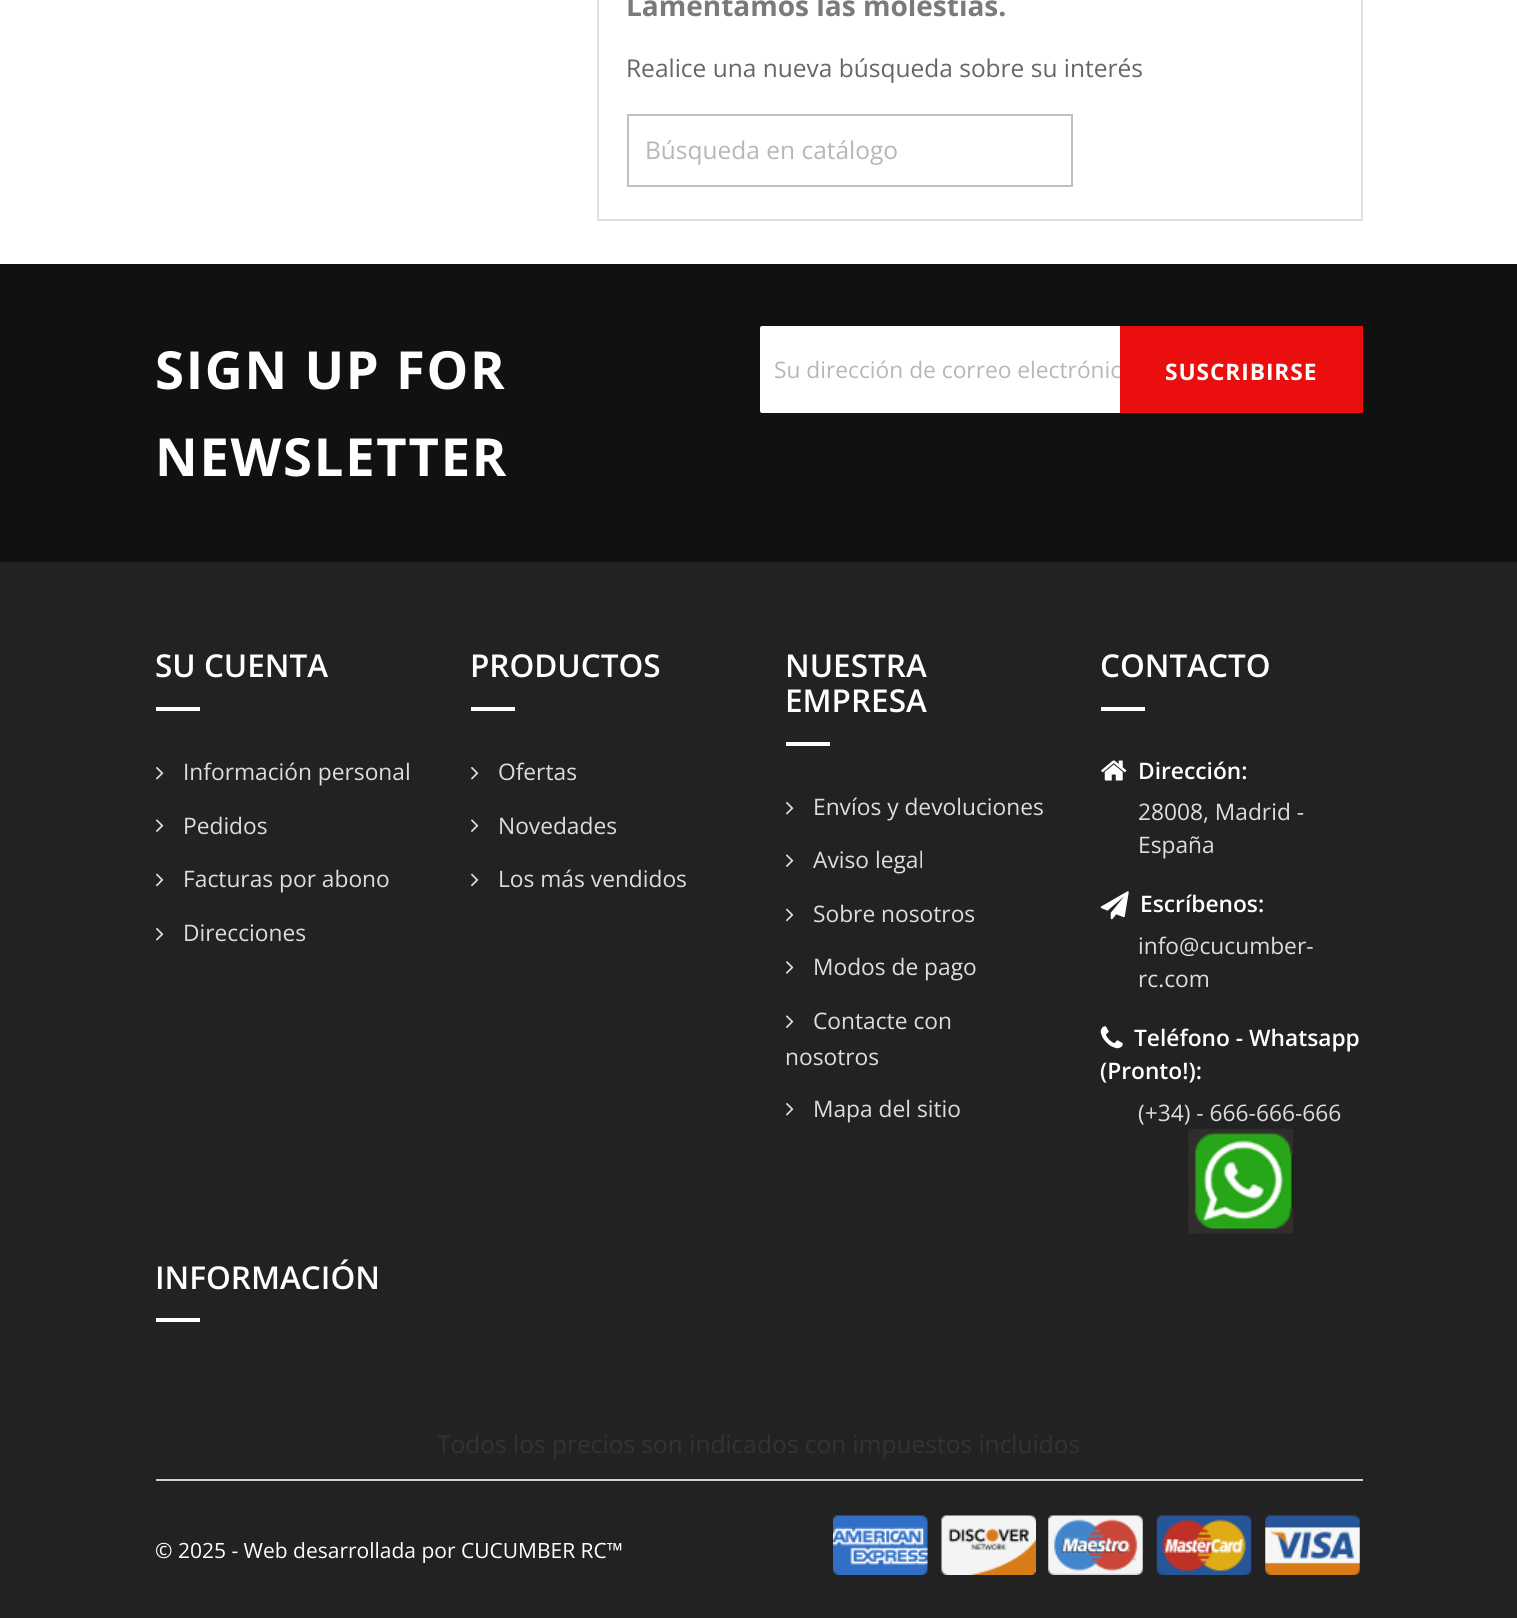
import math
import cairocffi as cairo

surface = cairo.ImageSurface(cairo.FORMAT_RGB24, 1517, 1618)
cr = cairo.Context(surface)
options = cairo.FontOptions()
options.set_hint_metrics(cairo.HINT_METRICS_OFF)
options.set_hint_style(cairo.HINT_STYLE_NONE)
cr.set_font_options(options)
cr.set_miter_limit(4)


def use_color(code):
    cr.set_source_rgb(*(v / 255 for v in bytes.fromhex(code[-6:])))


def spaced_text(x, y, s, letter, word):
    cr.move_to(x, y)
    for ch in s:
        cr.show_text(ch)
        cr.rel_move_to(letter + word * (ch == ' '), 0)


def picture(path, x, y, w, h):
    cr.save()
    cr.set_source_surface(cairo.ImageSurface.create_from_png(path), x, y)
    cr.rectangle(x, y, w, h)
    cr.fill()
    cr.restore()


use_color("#ffffff")
cr.paint()
cr.rectangle(598, -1, 764, 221)
use_color("#dfdfdf")
cr.stroke()
cr.select_font_face("Open Sans", cairo.FONT_SLANT_NORMAL, cairo.FONT_WEIGHT_BOLD)
cr.set_font_size(28)
use_color("#7a7a7a")
cr.move_to(626, 16)
cr.show_text("Lamentamos las molestias.")
cr.select_font_face("Open Sans")
cr.set_font_size(24.5)
use_color("#666666")
cr.move_to(626, 77)
cr.show_text("Realice una nueva búsqueda sobre su interés")
cr.rectangle(628, 115, 444, 71)
use_color("#bfbfbf")
cr.stroke()
use_color("#b7b7b7")
cr.move_to(645, 159)
cr.show_text("Búsqueda en catálogo")
use_color("#111111")
cr.rectangle(0, 264, 1517, 298)
cr.fill()
cr.select_font_face("Open Sans", cairo.FONT_SLANT_NORMAL, cairo.FONT_WEIGHT_BOLD)
cr.set_font_size(52.5)
use_color("#ffffff")
spaced_text(155, 389, "SIGN UP FOR", 1.75, 0)
spaced_text(155, 476, "NEWSLETTER", 1.75, 0)
cr.new_path()
cr.move_to(762, 326)
cr.line_to(1120, 326)
cr.line_to(1120, 413)
cr.line_to(762, 413)
cr.curve_to(761, 413, 760, 412, 760, 411)
cr.line_to(760, 328)
cr.curve_to(760, 327, 761, 326, 762, 326)
cr.close_path()
cr.fill()
cr.save()
cr.rectangle(775, 354, 345, 31)
cr.clip()
cr.select_font_face("Open Sans")
cr.set_font_size(22.75)
use_color("#b7b7b7")
cr.move_to(774, 378)
cr.show_text("Su dirección de correo electrónic")
cr.restore()
use_color("#eb0e0e")
cr.rectangle(1120, 326, 243, 87)
cr.fill()
cr.set_font_size(22.75)
use_color("#ffffff")
spaced_text(1165, 380, "SUSCRIBIRSE", 0.9, 0)
use_color("#222222")
cr.rectangle(0, 562, 1517, 1056)
cr.fill()
cr.select_font_face("Open Sans SemiBold")
cr.set_font_size(31.5)
use_color("#ffffff")
cr.move_to(155, 677)
cr.show_text("SU CUENTA")
cr.rectangle(156, 707, 44, 4)
cr.fill()
picture("img1.png", 156, 766, 8, 14)
cr.select_font_face("Open Sans")
cr.set_font_size(22.75)
use_color("#dddddd")
cr.move_to(183, 780)
cr.show_text("Información personal")
picture("img2.png", 156, 819, 8, 13)
cr.move_to(183, 834)
cr.show_text("Pedidos")
picture("img3.png", 156, 873, 8, 14)
cr.move_to(183, 887)
cr.show_text("Facturas por abono")
picture("img1.png", 156, 927, 8, 14)
cr.move_to(183, 941)
cr.show_text("Direcciones")
cr.select_font_face("Open Sans SemiBold")
cr.set_font_size(31.5)
use_color("#ffffff")
cr.move_to(470, 677)
cr.show_text("PRODUCTOS")
cr.rectangle(471, 707, 44, 4)
cr.fill()
picture("img1.png", 471, 766, 8, 14)
cr.select_font_face("Open Sans")
cr.set_font_size(22.75)
use_color("#dddddd")
cr.move_to(498, 780)
cr.show_text("Ofertas")
picture("img2.png", 471, 819, 8, 13)
cr.move_to(498, 834)
cr.show_text("Novedades")
picture("img3.png", 471, 873, 8, 14)
cr.move_to(498, 887)
cr.show_text("Los más vendidos")
cr.select_font_face("Open Sans SemiBold")
cr.set_font_size(31.5)
use_color("#ffffff")
cr.move_to(785, 677)
cr.show_text("NUESTRA")
cr.move_to(785, 712)
cr.show_text("EMPRESA")
cr.rectangle(786, 742, 44, 4)
cr.fill()
picture("img1.png", 786, 801, 8, 14)
cr.select_font_face("Open Sans")
cr.set_font_size(22.75)
use_color("#dddddd")
cr.move_to(813, 815)
cr.show_text("Envíos y devoluciones")
picture("img2.png", 786, 854, 8, 13)
cr.move_to(813, 868)
cr.show_text("Aviso legal")
picture("img3.png", 786, 908, 8, 14)
cr.move_to(813, 922)
cr.show_text("Sobre nosotros")
picture("img4.png", 786, 961, 8, 13)
cr.move_to(813, 975)
cr.show_text("Modos de pago")
picture("img2.png", 786, 1015, 8, 13)
cr.move_to(813, 1029)
cr.show_text("Contacte con")
cr.move_to(785, 1065)
cr.show_text("nosotros")
picture("img1.png", 786, 1102, 8, 14)
cr.move_to(813, 1117)
cr.show_text("Mapa del sitio")
cr.select_font_face("Open Sans SemiBold")
cr.set_font_size(31.5)
use_color("#ffffff")
cr.move_to(1100, 677)
cr.show_text("CONTACTO")
cr.rectangle(1101, 707, 44, 4)
cr.fill()
picture("img5.png", 1101, 760, 26, 21)
cr.set_font_size(22.75)
cr.move_to(1138, 779)
cr.show_text("Dirección:")
cr.select_font_face("Open Sans")
use_color("#dddddd")
cr.move_to(1138, 820)
cr.show_text("28008, Madrid -")
cr.move_to(1138, 853)
cr.show_text("España")
picture("img6.png", 1100, 891, 29, 29)
cr.select_font_face("Open Sans SemiBold")
use_color("#ffffff")
cr.move_to(1140, 912)
cr.show_text("Escríbenos:")
cr.select_font_face("Open Sans")
use_color("#dddddd")
cr.move_to(1138, 954)
cr.show_text("info@cucumber-")
cr.move_to(1138, 987)
cr.show_text("rc.com")
picture("img7.png", 1100, 1026, 23, 23)
cr.select_font_face("Open Sans SemiBold")
use_color("#ffffff")
cr.move_to(1134, 1046)
cr.show_text("Teléfono - Whatsapp")
cr.move_to(1100, 1079)
cr.show_text("(Pronto!):")
cr.select_font_face("Open Sans")
use_color("#dddddd")
cr.move_to(1138, 1121)
cr.show_text("(+34) - 666-666-666")
picture("img8.png", 1188, 1128, 106, 106)
cr.select_font_face("Open Sans SemiBold")
cr.set_font_size(31.5)
use_color("#ffffff")
cr.move_to(155, 1289)
cr.show_text("INFORMACIÓN")
cr.rectangle(156, 1318, 44, 4)
cr.fill()
cr.select_font_face("Open Sans")
cr.set_font_size(24.5)
use_color("#333333")
cr.move_to(437, 1453)
cr.show_text("Todos los precios son indicados con impuestos incluidos")
use_color("#d1d1d1")
cr.rectangle(156, 1479, 1207, 2)
cr.fill()
cr.set_font_size(21)
use_color("#ffffff")
cr.move_to(155, 1558)
cr.show_text("© 2025 - Web desarrollada por CUCUMBER RC™")
picture("img9.png", 833, 1515, 95, 60)
picture("img10.png", 941, 1515, 95, 60)
picture("img11.png", 1048, 1515, 95, 60)
picture("img12.png", 1156, 1515, 96, 60)
picture("img13.png", 1265, 1515, 95, 60)
surface.write_to_png("result.png")
